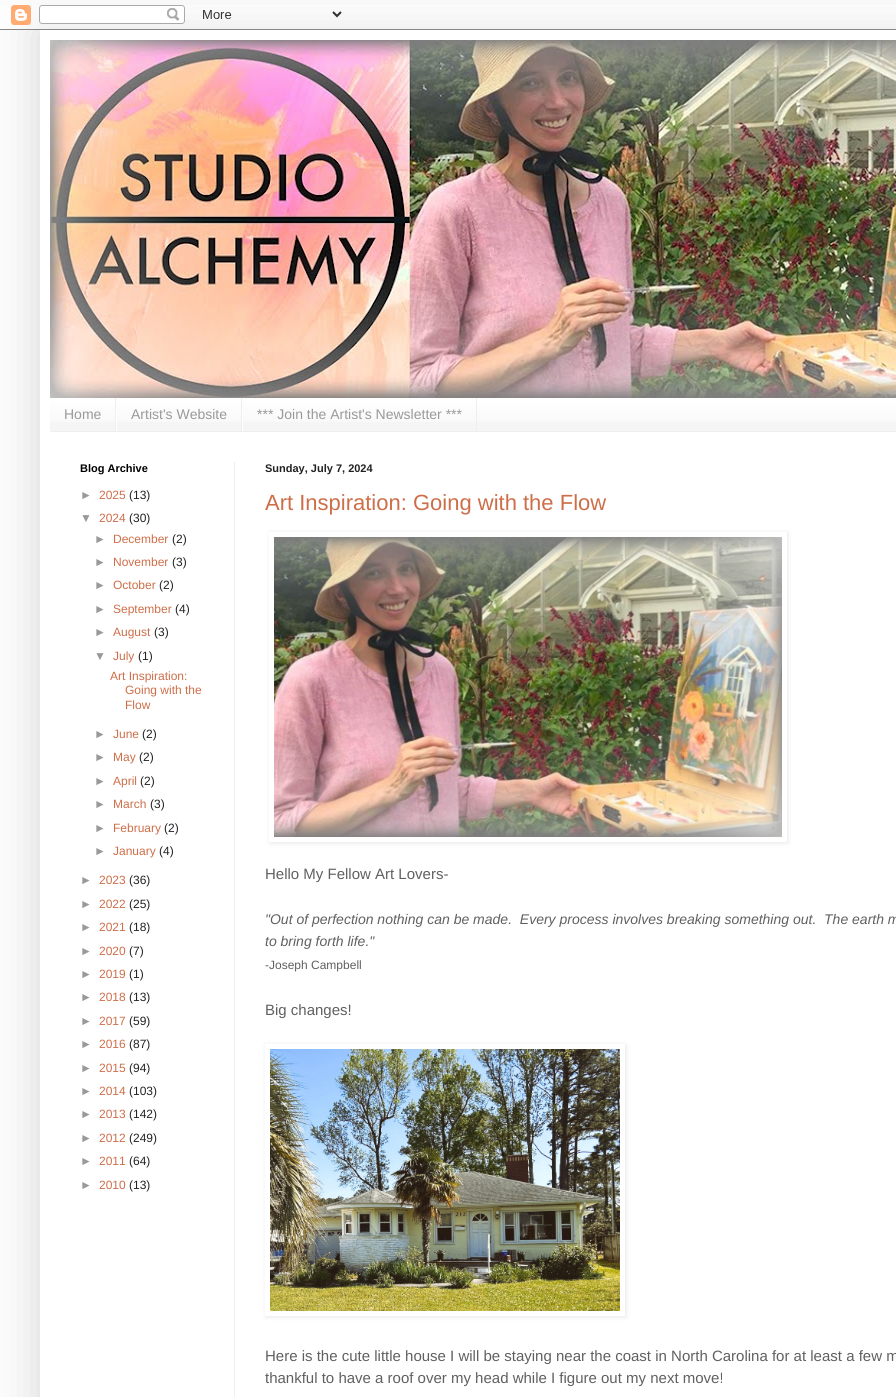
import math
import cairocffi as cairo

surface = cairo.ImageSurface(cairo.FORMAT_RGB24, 896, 1397)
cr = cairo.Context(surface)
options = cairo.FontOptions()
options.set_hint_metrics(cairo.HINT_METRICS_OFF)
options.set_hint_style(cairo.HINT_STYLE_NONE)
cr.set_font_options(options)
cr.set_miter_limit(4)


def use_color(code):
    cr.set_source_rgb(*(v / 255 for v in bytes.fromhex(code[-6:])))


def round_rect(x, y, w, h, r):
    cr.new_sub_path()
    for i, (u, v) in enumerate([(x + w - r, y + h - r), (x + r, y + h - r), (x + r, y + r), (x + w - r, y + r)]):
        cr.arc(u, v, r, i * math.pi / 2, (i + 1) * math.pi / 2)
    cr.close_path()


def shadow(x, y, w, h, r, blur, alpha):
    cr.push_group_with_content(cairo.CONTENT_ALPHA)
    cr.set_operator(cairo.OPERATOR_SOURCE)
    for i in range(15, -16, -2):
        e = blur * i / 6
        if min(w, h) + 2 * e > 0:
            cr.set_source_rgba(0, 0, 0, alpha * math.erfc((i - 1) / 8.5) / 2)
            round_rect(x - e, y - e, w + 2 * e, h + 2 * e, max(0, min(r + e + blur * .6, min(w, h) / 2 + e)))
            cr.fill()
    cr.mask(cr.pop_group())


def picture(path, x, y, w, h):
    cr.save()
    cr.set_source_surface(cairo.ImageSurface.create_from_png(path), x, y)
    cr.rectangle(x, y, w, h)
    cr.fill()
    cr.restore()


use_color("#fbfbfb")
cr.paint()
use_color("#000000")
shadow(40, 30, 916, 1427, 0, 20, 0.15)
picture("img1.png", 0, 5, 896, 25)
use_color("#ffffff")
cr.rectangle(40, 30, 856, 1367)
cr.fill()
picture("img2.png", 50, 40, 846, 358)
use_color("#f5f5f5")
cr.rectangle(50, 399, 846, 32)
cr.fill()
picture("img3.png", 50, 398, 846, 24)
use_color("#eeeeee")
cr.rectangle(50, 431, 846, 1)
cr.fill()
cr.rectangle(115, 398, 1, 33)
cr.fill()
cr.select_font_face("Liberation Sans")
cr.set_font_size(14)
use_color("#999999")
cr.move_to(64, 419)
cr.show_text("Home")
use_color("#eeeeee")
cr.rectangle(241, 398, 1, 33)
cr.fill()
use_color("#ffffff")
cr.rectangle(116, 409, 1, 22)
cr.fill()
use_color("#999999")
cr.move_to(131, 419)
cr.show_text("Artist's Website")
use_color("#eeeeee")
cr.rectangle(476, 398, 1, 33)
cr.fill()
use_color("#ffffff")
cr.rectangle(242, 409, 1, 22)
cr.fill()
use_color("#999999")
cr.move_to(257, 419)
cr.show_text("*** Join the Artist's Newsletter ***")
use_color("#eeeeee")
cr.rectangle(234, 462, 1, 935)
cr.fill()
cr.select_font_face("Liberation Sans", cairo.FONT_SLANT_NORMAL, cairo.FONT_WEIGHT_BOLD)
cr.set_font_size(11)
use_color("#000000")
cr.move_to(80, 472)
cr.show_text("Blog Archive")
cr.select_font_face("Liberation Sans")
cr.set_font_size(12)
use_color("#999999")
cr.move_to(80, 499)
cr.show_text("►")
use_color("#ce6e49")
cr.move_to(99, 499)
cr.show_text("2025")
use_color("#222222")
cr.move_to(129, 499)
cr.show_text("(13)")
use_color("#999999")
cr.move_to(80, 522)
cr.show_text("▼")
use_color("#ce6e49")
cr.move_to(99, 522)
cr.show_text("2024")
use_color("#222222")
cr.move_to(129, 522)
cr.show_text("(30)")
use_color("#999999")
cr.move_to(94, 543)
cr.show_text("►")
use_color("#ce6e49")
cr.move_to(113, 543)
cr.show_text("December")
use_color("#222222")
cr.move_to(172, 543)
cr.show_text("(2)")
use_color("#999999")
cr.move_to(94, 566)
cr.show_text("►")
use_color("#ce6e49")
cr.move_to(113, 566)
cr.show_text("November")
use_color("#222222")
cr.move_to(172, 566)
cr.show_text("(3)")
use_color("#999999")
cr.move_to(94, 589)
cr.show_text("►")
use_color("#ce6e49")
cr.move_to(113, 589)
cr.show_text("October")
use_color("#222222")
cr.move_to(159, 589)
cr.show_text("(2)")
use_color("#999999")
cr.move_to(94, 613)
cr.show_text("►")
use_color("#ce6e49")
cr.move_to(113, 613)
cr.show_text("September")
use_color("#222222")
cr.move_to(175, 613)
cr.show_text("(4)")
use_color("#999999")
cr.move_to(94, 636)
cr.show_text("►")
use_color("#ce6e49")
cr.move_to(113, 636)
cr.show_text("August")
use_color("#222222")
cr.move_to(154, 636)
cr.show_text("(3)")
use_color("#999999")
cr.move_to(94, 660)
cr.show_text("▼")
use_color("#ce6e49")
cr.move_to(113, 660)
cr.show_text("July")
use_color("#222222")
cr.move_to(138, 660)
cr.show_text("(1)")
use_color("#ce6e49")
cr.move_to(110, 680)
cr.show_text("Art Inspiration:")
cr.move_to(125, 694)
cr.show_text("Going with the")
cr.move_to(125, 709)
cr.show_text("Flow")
use_color("#999999")
cr.move_to(94, 738)
cr.show_text("►")
use_color("#ce6e49")
cr.move_to(113, 738)
cr.show_text("June")
use_color("#222222")
cr.move_to(142, 738)
cr.show_text("(2)")
use_color("#999999")
cr.move_to(94, 761)
cr.show_text("►")
use_color("#ce6e49")
cr.move_to(113, 761)
cr.show_text("May")
use_color("#222222")
cr.move_to(139, 761)
cr.show_text("(2)")
use_color("#999999")
cr.move_to(94, 785)
cr.show_text("►")
use_color("#ce6e49")
cr.move_to(113, 785)
cr.show_text("April")
use_color("#222222")
cr.move_to(140, 785)
cr.show_text("(2)")
use_color("#999999")
cr.move_to(94, 808)
cr.show_text("►")
use_color("#ce6e49")
cr.move_to(113, 808)
cr.show_text("March")
use_color("#222222")
cr.move_to(150, 808)
cr.show_text("(3)")
use_color("#999999")
cr.move_to(94, 832)
cr.show_text("►")
use_color("#ce6e49")
cr.move_to(113, 832)
cr.show_text("February")
use_color("#222222")
cr.move_to(164, 832)
cr.show_text("(2)")
use_color("#999999")
cr.move_to(94, 855)
cr.show_text("►")
use_color("#ce6e49")
cr.move_to(113, 855)
cr.show_text("January")
use_color("#222222")
cr.move_to(159, 855)
cr.show_text("(4)")
use_color("#999999")
cr.move_to(80, 884)
cr.show_text("►")
use_color("#ce6e49")
cr.move_to(99, 884)
cr.show_text("2023")
use_color("#222222")
cr.move_to(129, 884)
cr.show_text("(36)")
use_color("#999999")
cr.move_to(80, 908)
cr.show_text("►")
use_color("#ce6e49")
cr.move_to(99, 908)
cr.show_text("2022")
use_color("#222222")
cr.move_to(129, 908)
cr.show_text("(25)")
use_color("#999999")
cr.move_to(80, 931)
cr.show_text("►")
use_color("#ce6e49")
cr.move_to(99, 931)
cr.show_text("2021")
use_color("#222222")
cr.move_to(129, 931)
cr.show_text("(18)")
use_color("#999999")
cr.move_to(80, 955)
cr.show_text("►")
use_color("#ce6e49")
cr.move_to(99, 955)
cr.show_text("2020")
use_color("#222222")
cr.move_to(129, 955)
cr.show_text("(7)")
use_color("#999999")
cr.move_to(80, 978)
cr.show_text("►")
use_color("#ce6e49")
cr.move_to(99, 978)
cr.show_text("2019")
use_color("#222222")
cr.move_to(129, 978)
cr.show_text("(1)")
use_color("#999999")
cr.move_to(80, 1001)
cr.show_text("►")
use_color("#ce6e49")
cr.move_to(99, 1001)
cr.show_text("2018")
use_color("#222222")
cr.move_to(129, 1001)
cr.show_text("(13)")
use_color("#999999")
cr.move_to(80, 1025)
cr.show_text("►")
use_color("#ce6e49")
cr.move_to(99, 1025)
cr.show_text("2017")
use_color("#222222")
cr.move_to(129, 1025)
cr.show_text("(59)")
use_color("#999999")
cr.move_to(80, 1048)
cr.show_text("►")
use_color("#ce6e49")
cr.move_to(99, 1048)
cr.show_text("2016")
use_color("#222222")
cr.move_to(129, 1048)
cr.show_text("(87)")
use_color("#999999")
cr.move_to(80, 1072)
cr.show_text("►")
use_color("#ce6e49")
cr.move_to(99, 1072)
cr.show_text("2015")
use_color("#222222")
cr.move_to(129, 1072)
cr.show_text("(94)")
use_color("#999999")
cr.move_to(80, 1095)
cr.show_text("►")
use_color("#ce6e49")
cr.move_to(99, 1095)
cr.show_text("2014")
use_color("#222222")
cr.move_to(129, 1095)
cr.show_text("(103)")
use_color("#999999")
cr.move_to(80, 1118)
cr.show_text("►")
use_color("#ce6e49")
cr.move_to(99, 1118)
cr.show_text("2013")
use_color("#222222")
cr.move_to(129, 1118)
cr.show_text("(142)")
use_color("#999999")
cr.move_to(80, 1142)
cr.show_text("►")
use_color("#ce6e49")
cr.move_to(99, 1142)
cr.show_text("2012")
use_color("#222222")
cr.move_to(129, 1142)
cr.show_text("(249)")
use_color("#999999")
cr.move_to(80, 1165)
cr.show_text("►")
use_color("#ce6e49")
cr.move_to(99, 1165)
cr.show_text("2011")
use_color("#222222")
cr.move_to(129, 1165)
cr.show_text("(64)")
use_color("#999999")
cr.move_to(80, 1189)
cr.show_text("►")
use_color("#ce6e49")
cr.move_to(99, 1189)
cr.show_text("2010")
use_color("#222222")
cr.move_to(129, 1189)
cr.show_text("(13)")
cr.select_font_face("Liberation Sans", cairo.FONT_SLANT_NORMAL, cairo.FONT_WEIGHT_BOLD)
cr.set_font_size(11)
cr.move_to(265, 472)
cr.show_text("Sunday, July 7, 2024")
cr.select_font_face("Liberation Sans")
cr.set_font_size(22)
use_color("#ce6e49")
cr.move_to(265, 510)
cr.show_text("Art Inspiration: Going with the Flow")
cr.save()
cr.set_fill_rule(cairo.FILL_RULE_EVEN_ODD)
cr.new_path()
cr.move_to(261, 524)
cr.line_to(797, 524)
cr.line_to(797, 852)
cr.line_to(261, 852)
cr.close_path()
cr.move_to(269, 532)
cr.line_to(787, 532)
cr.line_to(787, 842)
cr.line_to(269, 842)
cr.close_path()
cr.clip()
use_color("#000000")
shadow(270, 533, 518, 310, 0, 2.5, 0.1)
cr.restore()
picture("img4.png", 274, 537, 508, 300)
cr.set_font_size(15)
use_color("#606060")
cr.move_to(265, 879)
cr.show_text("Hello My Fellow Art Lovers-")
cr.select_font_face("Liberation Sans", cairo.FONT_SLANT_ITALIC)
cr.set_font_size(14)
cr.move_to(265, 924)
cr.show_text("\"Out of perfection nothing can be made.  Every process involves breaking something out.  The earth m")
cr.move_to(265, 946)
cr.show_text("to bring forth life.\"")
cr.select_font_face("Liberation Sans")
cr.set_font_size(12)
cr.move_to(265, 969)
cr.show_text("-Joseph Campbell")
cr.set_font_size(15)
cr.move_to(265, 1015)
cr.show_text("Big changes!")
cr.save()
cr.set_fill_rule(cairo.FILL_RULE_EVEN_ODD)
cr.new_path()
cr.move_to(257, 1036)
cr.line_to(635, 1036)
cr.line_to(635, 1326)
cr.line_to(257, 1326)
cr.close_path()
cr.move_to(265, 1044)
cr.line_to(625, 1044)
cr.line_to(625, 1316)
cr.line_to(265, 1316)
cr.close_path()
cr.clip()
use_color("#000000")
shadow(266, 1045, 360, 272, 0, 2.5, 0.1)
cr.restore()
picture("img5.png", 270, 1049, 350, 262)
cr.move_to(265, 1361)
cr.show_text("Here is the cute little house I will be staying near the coast in North Carolina for at least a few m")
cr.move_to(265, 1383)
cr.show_text("thankful to have a roof over my head while I figure out my next move!")
surface.write_to_png("result.png")
